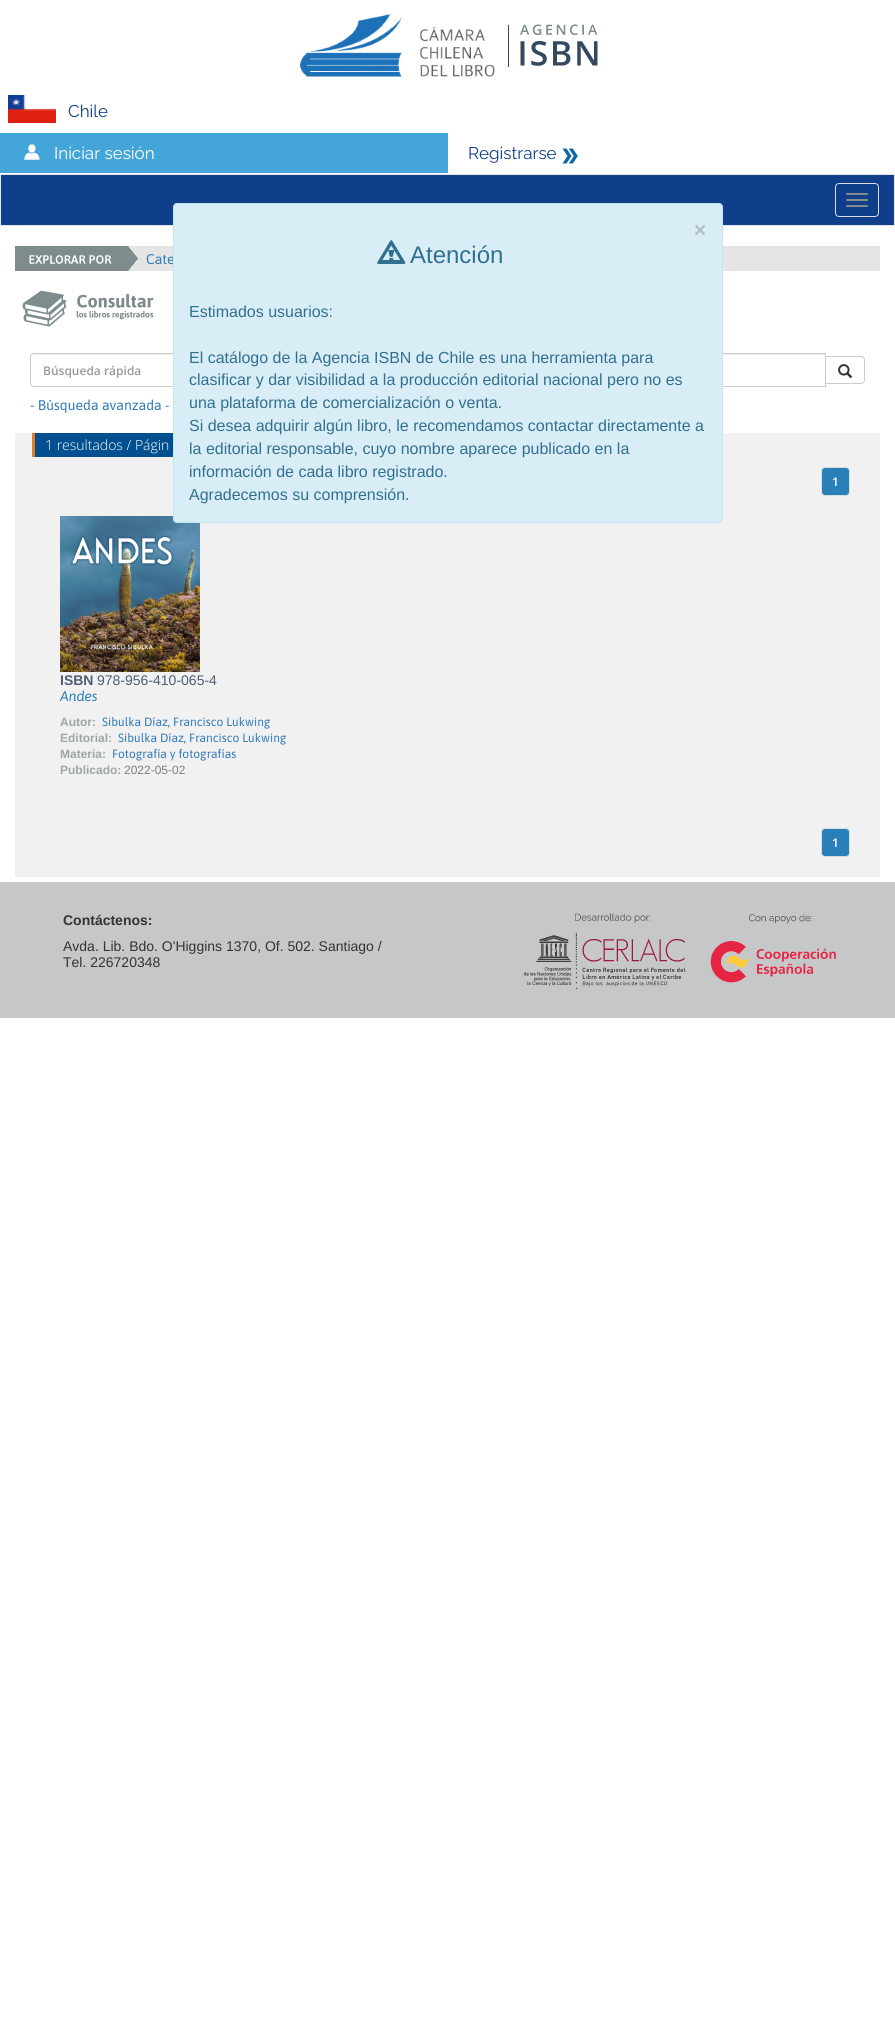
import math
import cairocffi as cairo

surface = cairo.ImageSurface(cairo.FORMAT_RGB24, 895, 2027)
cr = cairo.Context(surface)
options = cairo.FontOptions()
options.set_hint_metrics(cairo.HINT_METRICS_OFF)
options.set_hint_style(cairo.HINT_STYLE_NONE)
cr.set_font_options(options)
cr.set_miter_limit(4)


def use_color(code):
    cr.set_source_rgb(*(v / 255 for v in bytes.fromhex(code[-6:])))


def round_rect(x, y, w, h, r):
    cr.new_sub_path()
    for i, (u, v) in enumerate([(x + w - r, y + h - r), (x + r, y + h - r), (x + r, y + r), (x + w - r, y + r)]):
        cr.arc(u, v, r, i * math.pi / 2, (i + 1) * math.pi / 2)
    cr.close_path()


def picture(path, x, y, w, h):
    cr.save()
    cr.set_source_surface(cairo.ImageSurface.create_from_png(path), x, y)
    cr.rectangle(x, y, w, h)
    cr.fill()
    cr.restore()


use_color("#ffffff")
cr.paint()
picture("img1.png", 300, 13, 195, 64)
picture("img2.png", 508, 24, 90, 43)
picture("img3.png", 8, 95, 48, 28)
cr.select_font_face("Raleway Thin")
cr.set_font_size(17)
use_color("#0f3e8b")
cr.move_to(68, 117)
cr.show_text("Chile")
use_color("#44a5d9")
cr.rectangle(0, 133, 448, 40)
cr.fill()
picture("img4.png", 24, 144, 16, 16)
use_color("#ffffff")
cr.move_to(54, 159)
cr.show_text("Iniciar sesión")
use_color("#0f3e8b")
cr.move_to(468, 159)
cr.show_text("Registrarse")
picture("img5.png", 562, 148, 16, 16)
cr.rectangle(0.5, 174.5, 894, 51)
cr.fill_preserve()
use_color("#e7e7e7")
cr.set_line_width(1)
cr.stroke()
round_rect(835.5, 183.5, 43, 33, 3.5)
use_color("#dddddd")
cr.stroke()
use_color("#888888")
round_rect(846, 193, 22, 2, 1)
cr.fill()
round_rect(846, 199, 22, 2, 1)
cr.fill()
round_rect(846, 205, 22, 2, 1)
cr.fill()
use_color("#e5e5e5")
cr.rectangle(129, 246, 751, 25)
cr.fill()
picture("img6.png", 15, 246, 123, 25)
cr.select_font_face("Asap")
cr.set_font_size(14)
use_color("#337ab7")
cr.move_to(146, 264)
cr.show_text("Cate")
picture("img7.png", 22, 290, 132, 37)
use_color("#ececec")
cr.new_path()
cr.move_to(34, 355)
cr.line_to(825, 355)
cr.line_to(825, 354)
cr.line_to(34, 354)
cr.curve_to(32, 354, 31, 356, 31, 358)
cr.curve_to(31, 356, 32, 355, 34, 355)
cr.close_path()
cr.fill()
cr.new_path()
cr.move_to(34, 353.5)
cr.line_to(825.5, 353.5)
cr.line_to(825.5, 386.5)
cr.line_to(34, 386.5)
cr.curve_to(32, 386.5, 30.5, 385, 30.5, 383)
cr.line_to(30.5, 357)
cr.curve_to(30.5, 355, 32, 353.5, 34, 353.5)
cr.close_path()
use_color("#cccccc")
cr.stroke()
cr.select_font_face("Open Sans SemiBold")
cr.set_font_size(12)
use_color("#999999")
cr.move_to(43, 375)
cr.show_text("Búsqueda rápida")
use_color("#ffffff")
cr.new_path()
cr.move_to(825.5, 356.5)
cr.line_to(861, 356.5)
cr.curve_to(863, 356.5, 864.5, 358, 864.5, 360)
cr.line_to(864.5, 380)
cr.curve_to(864.5, 382, 863, 383.5, 861, 383.5)
cr.line_to(825.5, 383.5)
cr.close_path()
cr.fill_preserve()
use_color("#cccccc")
cr.stroke()
picture("img8.png", 838, 364, 15, 14)
cr.select_font_face("Asap")
cr.set_font_size(14)
use_color("#337ab7")
cr.move_to(30, 410)
cr.show_text("- Búsqueda avanzada -")
use_color("#f1f1f1")
cr.rectangle(15, 433, 865, 444)
cr.fill()
use_color("#02508f")
cr.rectangle(35, 433, 138, 24)
cr.fill()
cr.select_font_face("Open Sans Light")
use_color("#ffffff")
cr.move_to(45, 450)
cr.show_text("1 resultados / Págin")
use_color("#e67e22")
cr.rectangle(32, 433, 3, 24)
cr.fill()
use_color("#2980b9")
round_rect(821.5, 467.5, 28, 28, 3.5)
cr.fill_preserve()
use_color("#dddddd")
cr.stroke()
cr.select_font_face("Open Sans SemiBold")
cr.set_font_size(12)
use_color("#ffffff")
cr.move_to(832, 486)
cr.show_text("1")
picture("img9.png", 60, 516, 140, 156)
cr.select_font_face("Liberation Sans", cairo.FONT_SLANT_NORMAL, cairo.FONT_WEIGHT_BOLD)
cr.set_font_size(14)
use_color("#4d5f72")
cr.move_to(60, 685)
cr.show_text("ISBN")
cr.select_font_face("Liberation Sans")
cr.move_to(97, 685)
cr.show_text("978-956-410-065-4")
cr.select_font_face("Asap", cairo.FONT_SLANT_ITALIC)
use_color("#2980b9")
cr.move_to(60, 701)
cr.show_text("Andes")
cr.select_font_face("Liberation Sans", cairo.FONT_SLANT_NORMAL, cairo.FONT_WEIGHT_BOLD)
cr.set_font_size(12)
use_color("#9da7a8")
cr.move_to(60, 726)
cr.show_text("Autor:")
cr.select_font_face("Asap")
use_color("#337ab7")
cr.move_to(102, 726)
cr.show_text("Sibulka Díaz, Francisco Lukwing")
cr.select_font_face("Liberation Sans", cairo.FONT_SLANT_NORMAL, cairo.FONT_WEIGHT_BOLD)
use_color("#9da7a8")
cr.move_to(60, 742)
cr.show_text("Editorial:")
cr.select_font_face("Asap")
use_color("#337ab7")
cr.move_to(118, 742)
cr.show_text("Sibulka Díaz, Francisco Lukwing")
cr.select_font_face("Liberation Sans", cairo.FONT_SLANT_NORMAL, cairo.FONT_WEIGHT_BOLD)
use_color("#9da7a8")
cr.move_to(60, 758)
cr.show_text("Materia:")
cr.select_font_face("Asap")
use_color("#337ab7")
cr.move_to(112, 758)
cr.show_text("Fotografía y fotografías")
cr.select_font_face("Liberation Sans", cairo.FONT_SLANT_NORMAL, cairo.FONT_WEIGHT_BOLD)
use_color("#9da7a8")
cr.move_to(60, 774)
cr.show_text("Publicado:")
cr.select_font_face("Liberation Sans")
use_color("#7c807d")
cr.move_to(124, 774)
cr.show_text("2022-05-02")
use_color("#2980b9")
round_rect(821.5, 828.5, 28, 28, 3.5)
cr.fill_preserve()
use_color("#dddddd")
cr.stroke()
cr.select_font_face("Open Sans SemiBold")
use_color("#ffffff")
cr.move_to(832, 847)
cr.show_text("1")
use_color("#c6c7c8")
cr.rectangle(0, 882, 895, 136)
cr.fill()
cr.select_font_face("Liberation Sans", cairo.FONT_SLANT_NORMAL, cairo.FONT_WEIGHT_BOLD)
cr.set_font_size(14)
use_color("#333333")
cr.move_to(63, 925)
cr.show_text("Contáctenos:")
cr.select_font_face("Liberation Sans")
cr.move_to(63, 951)
cr.show_text("Avda. Lib. Bdo. O'Higgins 1370, Of. 502. Santiago /")
cr.move_to(63, 967)
cr.show_text("Tel. 226720348")
picture("img10.png", 523, 913, 313, 76)
use_color("#d9edf7")
round_rect(173.5, 203.5, 549, 319, 3.5)
cr.fill_preserve()
use_color("#bce8f1")
cr.stroke()
cr.select_font_face("Liberation Sans", cairo.FONT_SLANT_NORMAL, cairo.FONT_WEIGHT_BOLD)
cr.set_font_size(21)
use_color("#aebec6")
cr.move_to(694, 237)
cr.show_text("×")
picture("img11.png", 377, 240, 29, 24)
cr.select_font_face("Liberation Sans")
cr.set_font_size(24)
use_color("#31708f")
cr.move_to(410, 263)
cr.show_text("Atención")
cr.set_font_size(16)
cr.move_to(189, 317)
cr.show_text("Estimados usuarios:")
cr.move_to(189, 363)
cr.show_text("El catálogo de la Agencia ISBN de Chile es una herramienta para")
cr.move_to(189, 385)
cr.show_text("clasificar y dar visibilidad a la producción editorial nacional pero no es")
cr.move_to(189, 408)
cr.show_text("una plataforma de comercialización o venta.")
cr.move_to(189, 431)
cr.show_text("Si desea adquirir algún libro, le recomendamos contactar directamente a")
cr.move_to(189, 454)
cr.show_text("la editorial responsable, cuyo nombre aparece publicado en la")
cr.move_to(189, 477)
cr.show_text("información de cada libro registrado.")
cr.move_to(189, 500)
cr.show_text("Agradecemos su comprensión.")
surface.write_to_png("result.png")
